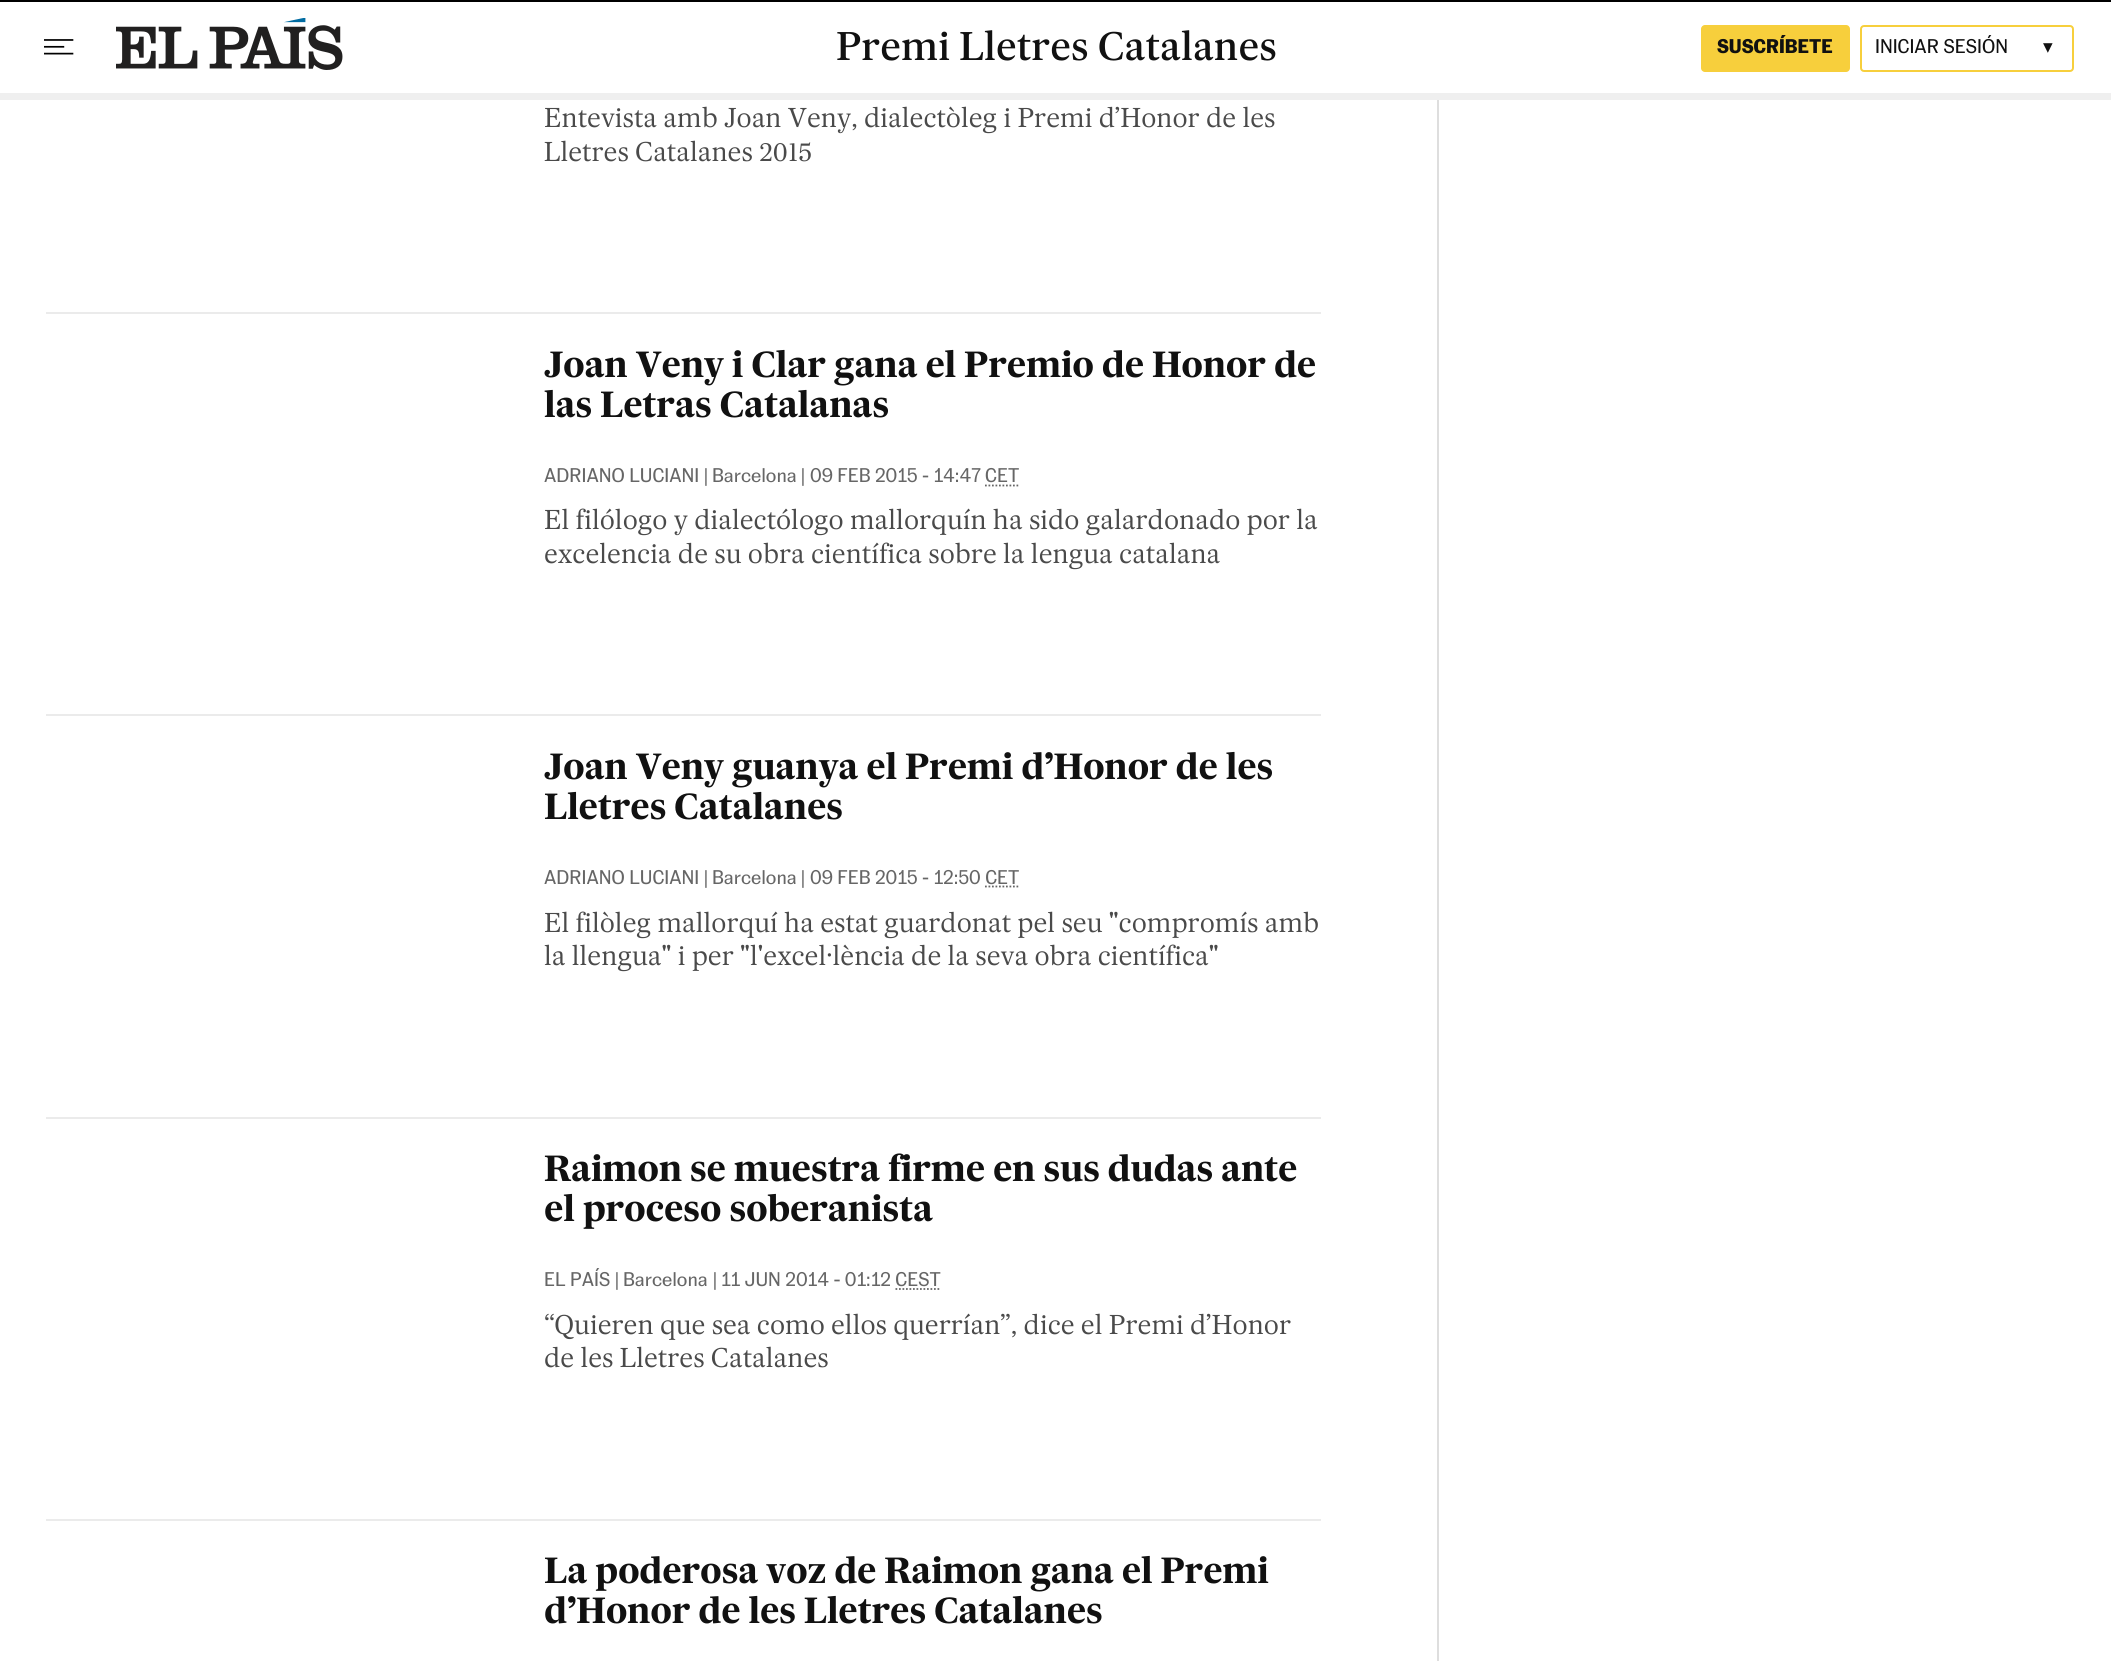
import math
import cairocffi as cairo

surface = cairo.ImageSurface(cairo.FORMAT_RGB24, 2111, 1661)
cr = cairo.Context(surface)
options = cairo.FontOptions()
options.set_hint_metrics(cairo.HINT_METRICS_OFF)
options.set_hint_style(cairo.HINT_STYLE_NONE)
cr.set_font_options(options)
cr.set_miter_limit(4)


def use_color(code):
    cr.set_source_rgb(*(v / 255 for v in bytes.fromhex(code[-6:])))


def spaced_text(x, y, s, letter, word):
    cr.move_to(x, y)
    for ch in s:
        cr.show_text(ch)
        cr.rel_move_to(letter + word * (ch == ' '), 0)


def round_rect(x, y, w, h, r):
    cr.new_sub_path()
    for i, (u, v) in enumerate([(x + w - r, y + h - r), (x + r, y + h - r), (x + r, y + r), (x + w - r, y + r)]):
        cr.arc(u, v, r, i * math.pi / 2, (i + 1) * math.pi / 2)
    cr.close_path()


def picture(path, x, y, w, h):
    cr.save()
    cr.set_source_surface(cairo.ImageSurface.create_from_png(path), x, y)
    cr.rectangle(x, y, w, h)
    cr.fill()
    cr.restore()


use_color("#ffffff")
cr.paint()
use_color("#000000")
cr.rectangle(0, 0, 2111, 2)
cr.fill()
picture("img1.png", 44, 39, 30, 16)
picture("img2.png", 116, 18, 227, 52)
cr.select_font_face("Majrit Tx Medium")
cr.set_font_size(38.5)
use_color("#111111")
cr.move_to(836, 60)
cr.show_text("Premi Lletres Catalanes")
use_color("#f7cf3c")
round_rect(1701, 25, 149, 47, 4)
cr.fill()
cr.select_font_face("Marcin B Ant", cairo.FONT_SLANT_NORMAL, cairo.FONT_WEIGHT_BOLD)
cr.set_font_size(19.25)
use_color("#111111")
cr.move_to(1717, 53)
cr.show_text("SUSCRÍBETE")
round_rect(1861, 26, 212, 45, 3)
use_color("#f7cf3c")
cr.stroke()
cr.select_font_face("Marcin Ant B")
use_color("#111111")
cr.move_to(1875, 53)
cr.show_text("INICIAR SESIÓN")
cr.select_font_face("DejaVu Sans")
cr.move_to(2043, 53)
cr.show_text("▾")
use_color("#efefef")
cr.rectangle(0, 93, 2111, 7)
cr.fill()
use_color("#ebebeb")
cr.rectangle(46, 312, 1275, 2)
cr.fill()
cr.select_font_face("Majrit Tx")
cr.set_font_size(26.25)
use_color("#4a4a4a")
cr.move_to(544, 127)
cr.show_text("Entevista amb Joan Veny, dialectòleg i Premi d’Honor de les")
cr.move_to(544, 161)
cr.show_text("Lletres Catalanes 2015")
use_color("#dedede")
cr.rectangle(1437, 100, 2, 1561)
cr.fill()
use_color("#ebebeb")
cr.rectangle(46, 714, 1275, 2)
cr.fill()
cr.select_font_face("Majrit Tx", cairo.FONT_SLANT_NORMAL, cairo.FONT_WEIGHT_BOLD)
cr.set_font_size(35)
use_color("#111111")
spaced_text(544, 377, "Joan Veny i Clar gana el Premio de Honor de", -0.35, 0)
spaced_text(544, 417, "las Letras Catalanas", -0.35, 0)
cr.select_font_face("Marcin Ant B")
cr.set_font_size(19.25)
use_color("#666666")
cr.move_to(544, 482)
cr.show_text("ADRIANO LUCIANI")
cr.move_to(703, 482)
cr.show_text("|")
cr.move_to(712, 482)
cr.show_text("Barcelona")
cr.move_to(800, 482)
cr.show_text("|")
cr.move_to(810, 482)
cr.show_text("09 FEB 2015 - 14:47 CET")
cr.new_path()
cr.move_to(985, 485.5)
cr.line_to(1019, 485.5)
cr.set_line_width(1.8)
cr.set_dash([1.75, 1.75])
cr.stroke()
cr.select_font_face("Majrit Tx")
cr.set_font_size(26.25)
use_color("#4a4a4a")
cr.move_to(544, 529)
cr.show_text("El filólogo y dialectólogo mallorquín ha sido galardonado por la")
cr.move_to(544, 563)
cr.show_text("excelencia de su obra científica sobre la lengua catalana")
use_color("#ebebeb")
cr.rectangle(46, 1117, 1275, 2)
cr.fill()
cr.select_font_face("Majrit Tx", cairo.FONT_SLANT_NORMAL, cairo.FONT_WEIGHT_BOLD)
cr.set_font_size(35)
use_color("#111111")
spaced_text(544, 779, "Joan Veny guanya el Premi d’Honor de les", -0.35, 0)
spaced_text(544, 819, "Lletres Catalanes", -0.35, 0)
cr.select_font_face("Marcin Ant B")
cr.set_font_size(19.25)
use_color("#666666")
cr.move_to(544, 884)
cr.show_text("ADRIANO LUCIANI")
cr.move_to(703, 884)
cr.show_text("|")
cr.move_to(712, 884)
cr.show_text("Barcelona")
cr.move_to(800, 884)
cr.show_text("|")
cr.move_to(810, 884)
cr.show_text("09 FEB 2015 - 12:50 CET")
cr.new_path()
cr.move_to(985, 886.5)
cr.line_to(1019, 886.5)
cr.stroke()
cr.select_font_face("Majrit Tx")
cr.set_font_size(26.25)
use_color("#4a4a4a")
cr.move_to(544, 932)
cr.show_text("El filòleg mallorquí ha estat guardonat pel seu \"compromís amb")
cr.move_to(544, 965)
cr.show_text("la llengua\" i per \"l'excel·lència de la seva obra científica\"")
use_color("#ebebeb")
cr.rectangle(46, 1519, 1275, 2)
cr.fill()
cr.select_font_face("Majrit Tx", cairo.FONT_SLANT_NORMAL, cairo.FONT_WEIGHT_BOLD)
cr.set_font_size(35)
use_color("#111111")
spaced_text(544, 1181, "Raimon se muestra firme en sus dudas ante", -0.35, 0)
spaced_text(544, 1221, "el proceso soberanista", -0.35, 0)
cr.select_font_face("Marcin Ant B")
cr.set_font_size(19.25)
use_color("#666666")
cr.move_to(544, 1286)
cr.show_text("EL PAÍS")
cr.move_to(614, 1286)
cr.show_text("|")
cr.move_to(623, 1286)
cr.show_text("Barcelona")
cr.move_to(712, 1286)
cr.show_text("|")
cr.move_to(721, 1286)
cr.show_text("11 JUN 2014 - 01:12 CEST")
cr.new_path()
cr.move_to(895.5, 1289)
cr.line_to(940.5, 1289)
cr.stroke()
cr.select_font_face("Majrit Tx")
cr.set_font_size(26.25)
use_color("#4a4a4a")
cr.move_to(544, 1334)
cr.show_text("“Quieren que sea como ellos querrían”, dice el Premi d’Honor")
cr.move_to(544, 1367)
cr.show_text("de les Lletres Catalanes")
cr.select_font_face("Majrit Tx", cairo.FONT_SLANT_NORMAL, cairo.FONT_WEIGHT_BOLD)
cr.set_font_size(35)
use_color("#111111")
spaced_text(544, 1583, "La poderosa voz de Raimon gana el Premi", -0.35, 0)
spaced_text(544, 1623, "d’Honor de les Lletres Catalanes", -0.35, 0)
surface.write_to_png("result.png")
